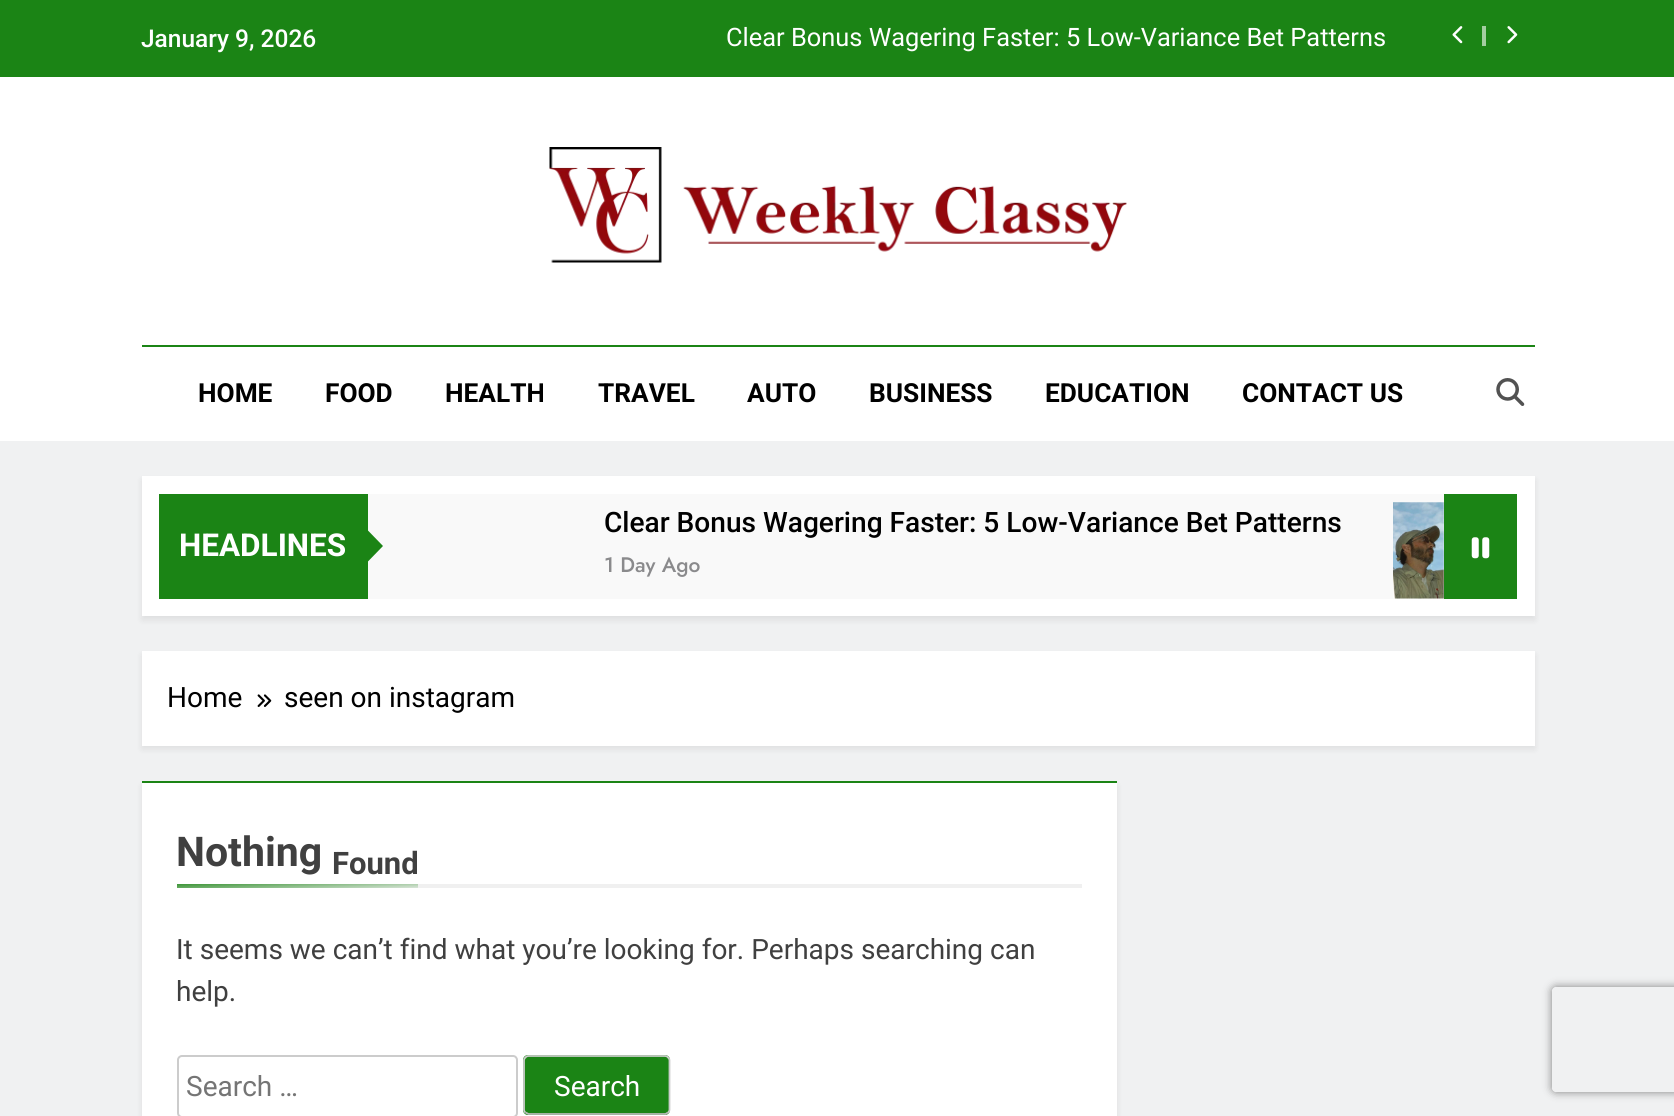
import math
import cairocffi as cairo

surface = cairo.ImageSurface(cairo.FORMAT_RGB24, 1674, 1116)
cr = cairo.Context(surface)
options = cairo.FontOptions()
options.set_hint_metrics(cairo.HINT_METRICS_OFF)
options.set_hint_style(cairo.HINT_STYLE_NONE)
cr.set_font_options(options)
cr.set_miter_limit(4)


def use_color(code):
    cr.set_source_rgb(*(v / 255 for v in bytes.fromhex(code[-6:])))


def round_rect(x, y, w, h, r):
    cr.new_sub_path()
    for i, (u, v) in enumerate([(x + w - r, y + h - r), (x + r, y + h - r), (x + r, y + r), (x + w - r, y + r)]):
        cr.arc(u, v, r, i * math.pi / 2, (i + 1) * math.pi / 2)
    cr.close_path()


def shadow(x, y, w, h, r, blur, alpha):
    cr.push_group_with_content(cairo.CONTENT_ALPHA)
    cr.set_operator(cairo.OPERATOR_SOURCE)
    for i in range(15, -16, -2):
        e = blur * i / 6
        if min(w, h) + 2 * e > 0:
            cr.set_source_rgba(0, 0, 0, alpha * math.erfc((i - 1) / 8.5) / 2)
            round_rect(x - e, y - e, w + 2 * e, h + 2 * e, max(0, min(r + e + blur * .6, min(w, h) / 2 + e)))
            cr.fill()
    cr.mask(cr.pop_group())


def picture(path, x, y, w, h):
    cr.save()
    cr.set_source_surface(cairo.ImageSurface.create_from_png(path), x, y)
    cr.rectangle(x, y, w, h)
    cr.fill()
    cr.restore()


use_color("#f0f1f2")
cr.paint()
use_color("#1b8415")
cr.rectangle(0, 0, 1674, 77)
cr.fill()
cr.select_font_face("Roboto Medium")
cr.set_font_size(24.5)
use_color("#ffffff")
cr.move_to(141, 47)
cr.show_text("January 9, 2026")
cr.select_font_face("Roboto")
cr.set_font_size(25.4)
cr.move_to(726, 46)
cr.show_text("Clear Bonus Wagering Faster: 5 Low-Variance Bet Patterns")
picture("img1.png", 1452, 26, 11, 18)
use_color("#a4cea1")
cr.rectangle(1482, 26, 4, 20)
cr.fill()
picture("img2.png", 1507, 26, 11, 18)
use_color("#ffffff")
cr.rectangle(0, 77, 1674, 364)
cr.fill()
picture("img3.png", 549, 147, 578, 116)
use_color("#1b8415")
cr.rectangle(142, 345, 1393, 2)
cr.fill()
cr.select_font_face("Roboto", cairo.FONT_SLANT_NORMAL, cairo.FONT_WEIGHT_BOLD)
cr.set_font_size(26.25)
use_color("#000000")
cr.move_to(198, 402)
cr.show_text("HOME")
cr.move_to(325, 402)
cr.show_text("FOOD")
cr.move_to(445, 402)
cr.show_text("HEALTH")
cr.move_to(598, 402)
cr.show_text("TRAVEL")
cr.move_to(747, 402)
cr.show_text("AUTO")
cr.move_to(869, 402)
cr.show_text("BUSINESS")
cr.move_to(1045, 402)
cr.show_text("EDUCATION")
cr.move_to(1242, 402)
cr.show_text("CONTACT US")
picture("img4.png", 1496, 378, 29, 28)
use_color("#000000")
shadow(142, 480, 1393, 140, 0, 3.5, 0.08)
use_color("#ffffff")
cr.rectangle(142, 476, 1393, 140)
cr.fill()
use_color("#1b8415")
cr.rectangle(159, 494, 209, 105)
cr.fill()
cr.set_font_size(31.5)
use_color("#ffffff")
cr.move_to(179, 556)
cr.show_text("HEADLINES")
use_color("#f9f9f9")
cr.rectangle(368, 494, 1076, 105)
cr.fill()
use_color("#1b8415")
cr.new_path()
cr.move_to(366, 563.5)
cr.line_to(366, 528.5)
cr.line_to(383, 546)
cr.close_path()
cr.fill()
cr.select_font_face("Roboto Medium")
cr.set_font_size(28.1)
use_color("#000000")
cr.move_to(604, 532)
cr.show_text("Clear Bonus Wagering Faster: 5 Low-Variance Bet Patterns")
cr.select_font_face("Jost Medium")
cr.set_font_size(21)
use_color("#8a8a8c")
cr.move_to(604, 572)
cr.show_text("1 Day Ago")
picture("img5.png", 1393, 502, 51, 97)
use_color("#1b8415")
cr.rectangle(1444, 494, 73, 105)
cr.fill()
picture("img6.png", 1471, 537, 19, 22)
use_color("#000000")
shadow(142, 655, 1393, 94, 0, 3.5, 0.08)
use_color("#ffffff")
cr.rectangle(142, 651, 1393, 95)
cr.fill()
cr.select_font_face("Roboto")
cr.set_font_size(28)
use_color("#000000")
cr.move_to(167, 707)
cr.show_text("Home")
picture("img7.png", 257, 694, 15, 13)
cr.move_to(284, 707)
cr.show_text("seen on instagram")
use_color("#000000")
shadow(142, 786, 975, 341, 0, 3.5, 0.08)
use_color("#ffffff")
cr.rectangle(142, 783, 975, 333)
cr.fill()
use_color("#1b8415")
cr.rectangle(142, 781, 975, 2)
cr.fill()
use_color("#f0f0f0")
cr.rectangle(418, 884, 664, 4)
cr.fill()
cr.select_font_face("Roboto", cairo.FONT_SLANT_NORMAL, cairo.FONT_WEIGHT_BOLD)
cr.set_font_size(41)
use_color("#404040")
cr.move_to(176, 866)
cr.show_text("Nothing")
cr.set_font_size(31)
cr.move_to(332, 874)
cr.show_text("Found")
gradient = cairo.LinearGradient(297, 875, 298, 896)
gradient.add_color_stop_rgba(0, 0.106, 0.518, 0.082, 1)
gradient.add_color_stop_rgba(1, 0.941, 0.941, 0.941, 1)
cr.set_source(gradient)
cr.rectangle(177, 884, 241, 4)
cr.fill()
cr.select_font_face("Roboto")
cr.set_font_size(28)
use_color("#404040")
cr.move_to(176, 959)
cr.show_text("It seems we can’t find what you’re looking for. Perhaps searching can")
cr.move_to(176, 1001)
cr.show_text("help.")
round_rect(178, 1056, 339, 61, 4)
use_color("#cccccc")
cr.stroke()
use_color("#757575")
cr.move_to(186, 1096)
cr.show_text("Search …")
use_color("#1b8415")
round_rect(523, 1055, 147, 60, 5)
cr.fill()
cr.new_path()
cr.move_to(668, 1112.5)
cr.line_to(665.5, 1114)
cr.line_to(551, 1114)
cr.line_to(528.5, 1114)
cr.line_to(525.5, 1112.5)
use_color("#bbbbbb")
cr.set_line_width(1.8)
cr.stroke()
cr.new_path()
cr.move_to(525.5, 1112.5)
cr.curve_to(524.5, 1112, 524, 1110.5, 524, 1109.5)
cr.line_to(524, 1060.5)
cr.curve_to(524, 1059.5, 524.5, 1058, 525.5, 1057.5)
cr.curve_to(526, 1056.5, 527.5, 1056, 528.5, 1056)
cr.line_to(665, 1056)
cr.curve_to(666, 1056, 667.5, 1056.5, 668, 1057.5)
cr.curve_to(669, 1058, 669.5, 1059.5, 669.5, 1060.5)
cr.line_to(669.5, 1109.5)
cr.curve_to(669.5, 1110.5, 669, 1112, 668, 1112.5)
use_color("#cccccc")
cr.stroke()
use_color("#ffffff")
cr.move_to(554, 1096)
cr.show_text("Search")
cr.save()
cr.set_fill_rule(cairo.FILL_RULE_EVEN_ODD)
cr.new_path()
cr.move_to(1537, 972)
cr.line_to(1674, 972)
cr.line_to(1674, 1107)
cr.line_to(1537, 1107)
cr.close_path()
cr.move_to(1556, 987)
cr.line_to(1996, 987)
cr.curve_to(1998, 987, 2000, 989, 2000, 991)
cr.line_to(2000, 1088)
cr.curve_to(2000, 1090, 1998, 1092, 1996, 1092)
cr.line_to(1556, 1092)
cr.curve_to(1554, 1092, 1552, 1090, 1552, 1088)
cr.line_to(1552, 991)
cr.curve_to(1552, 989, 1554, 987, 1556, 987)
cr.close_path()
cr.clip()
use_color("#808080")
shadow(1552, 987, 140, 105, 4, 4.5, 1)
cr.restore()
surface.write_to_png("result.png")
